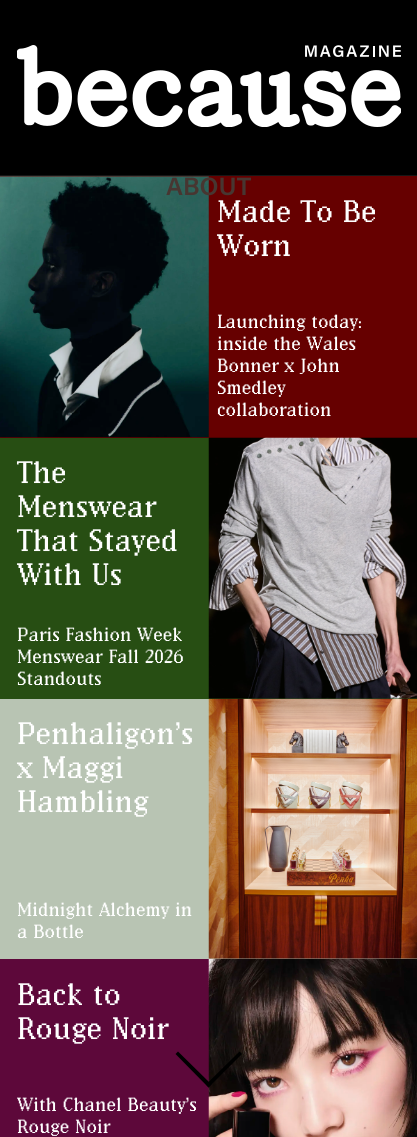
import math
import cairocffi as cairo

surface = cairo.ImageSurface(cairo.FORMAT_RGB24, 417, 1137)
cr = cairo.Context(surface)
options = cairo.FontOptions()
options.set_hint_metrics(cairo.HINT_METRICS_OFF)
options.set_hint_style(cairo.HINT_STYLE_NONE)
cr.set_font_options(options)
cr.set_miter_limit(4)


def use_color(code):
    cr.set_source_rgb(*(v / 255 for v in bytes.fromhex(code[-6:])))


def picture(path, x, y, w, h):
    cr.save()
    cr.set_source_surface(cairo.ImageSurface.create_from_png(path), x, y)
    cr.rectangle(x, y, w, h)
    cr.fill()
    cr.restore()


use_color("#161616")
cr.paint()
use_color("#000000")
cr.rectangle(0, 0, 417, 175)
cr.fill()
picture("img1.png", 17, 45, 384, 82)
use_color("#660000")
cr.rectangle(0, 176, 417, 262)
cr.fill()
picture("img2.png", 0, 176, 209, 262)
cr.select_font_face("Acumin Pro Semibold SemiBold")
cr.set_font_size(25)
use_color("#473631")
cr.move_to(166, 195)
cr.show_text("ABOUT")
cr.select_font_face("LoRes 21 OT")
cr.set_font_size(32.5)
use_color("#ffffff")
cr.move_to(217, 222)
cr.show_text("Made To Be")
cr.move_to(217, 256)
cr.show_text("Worn")
cr.set_font_size(20)
cr.move_to(217, 328)
cr.show_text("Launching today:")
cr.move_to(217, 350)
cr.show_text("inside the Wales")
cr.move_to(217, 372)
cr.show_text("Bonner x John")
cr.move_to(217, 394)
cr.show_text("Smedley")
cr.move_to(217, 416)
cr.show_text("collaboration")
use_color("#274e13")
cr.rectangle(0, 438, 417, 261)
cr.fill()
cr.set_font_size(32.5)
use_color("#ffffff")
cr.move_to(17, 483)
cr.show_text("The")
cr.move_to(17, 517)
cr.show_text("Menswear")
cr.move_to(17, 551)
cr.show_text("That Stayed")
cr.move_to(17, 585)
cr.show_text("With Us")
cr.set_font_size(20)
cr.move_to(17, 641)
cr.show_text("Paris Fashion Week")
cr.move_to(17, 663)
cr.show_text("Menswear Fall 2026")
cr.move_to(17, 685)
cr.show_text("Standouts")
picture("img3.png", 208, 437, 209, 262)
use_color("#b8c4b3")
cr.rectangle(0, 699, 417, 260)
cr.fill()
cr.set_font_size(32.5)
use_color("#ffffff")
cr.move_to(17, 744)
cr.show_text("Penhaligon’s")
cr.move_to(17, 778)
cr.show_text("x Maggi")
cr.move_to(17, 812)
cr.show_text("Hambling")
cr.set_font_size(20)
cr.move_to(17, 916)
cr.show_text("Midnight Alchemy in")
cr.move_to(17, 938)
cr.show_text("a Bottle")
picture("img4.png", 208, 698, 209, 261)
use_color("#5d083a")
cr.rectangle(0, 959, 209, 178)
cr.fill()
cr.set_font_size(32.5)
use_color("#ffffff")
cr.move_to(17, 1005)
cr.show_text("Back to")
cr.move_to(17, 1039)
cr.show_text("Rouge Noir")
cr.set_font_size(20)
cr.move_to(17, 1111)
cr.show_text("With Chanel Beauty’s")
cr.move_to(17, 1133)
cr.show_text("Rouge Noir")
picture("img5.png", 208, 958, 209, 179)
use_color("#000000")
cr.new_path()
cr.move_to(239.5, 1051.5)
cr.line_to(242, 1054)
cr.line_to(208.5, 1087.5)
cr.line_to(206, 1084.5)
cr.close_path()
cr.fill()
cr.new_path()
cr.move_to(178, 1051.5)
cr.line_to(211.5, 1084.5)
cr.line_to(208.5, 1087.5)
cr.line_to(175.5, 1054)
cr.close_path()
cr.fill()
surface.write_to_png("result.png")
